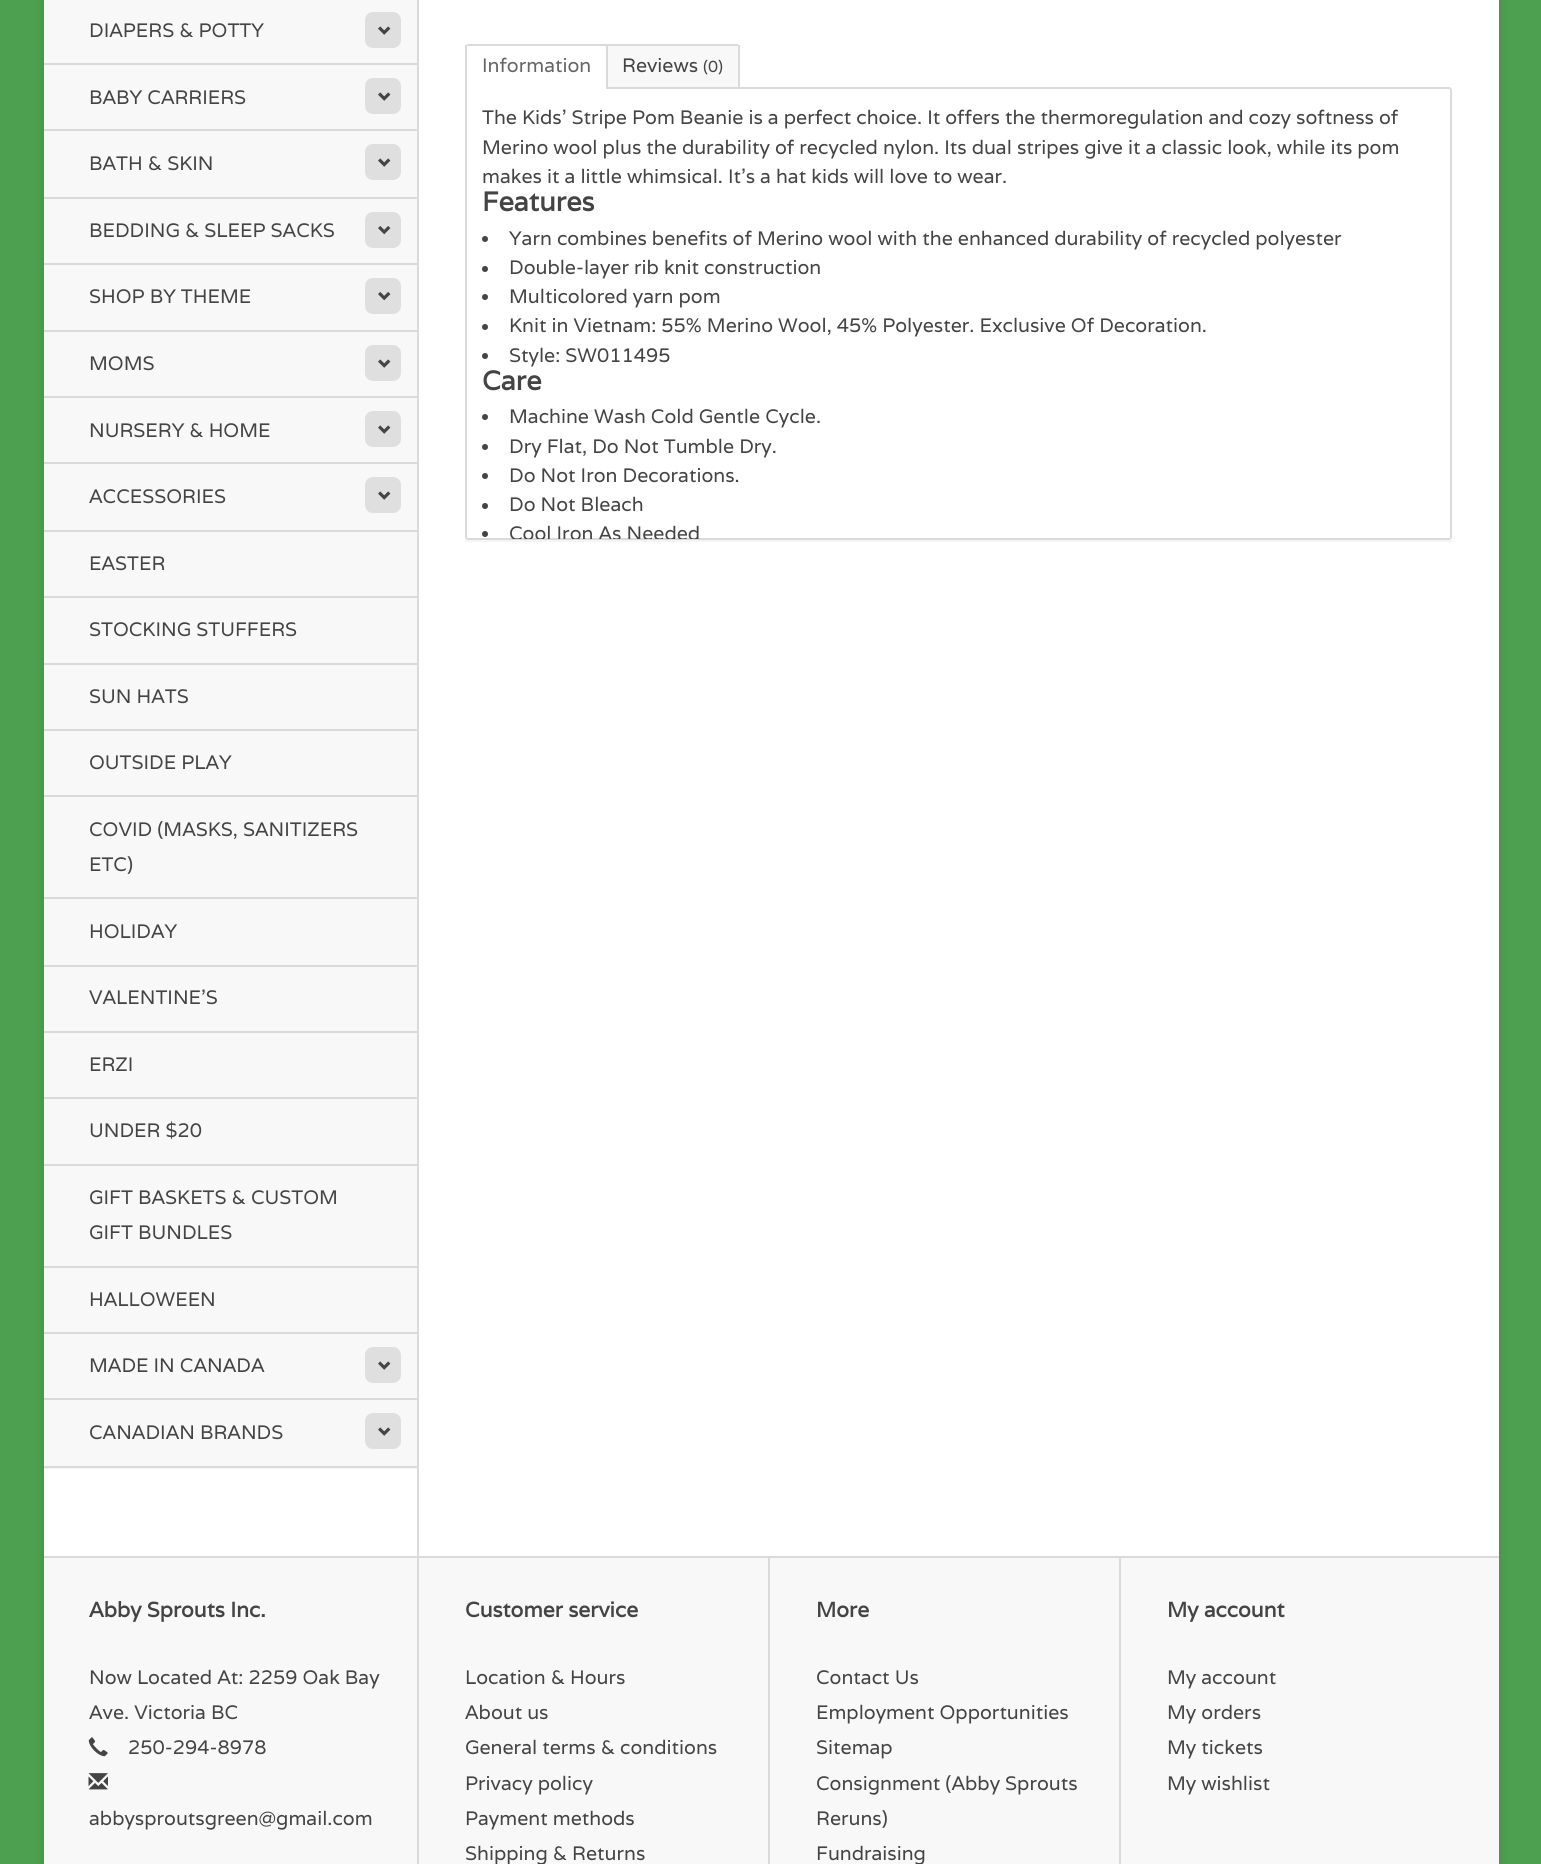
import math
import cairocffi as cairo

surface = cairo.ImageSurface(cairo.FORMAT_RGB24, 1541, 1864)
cr = cairo.Context(surface)
options = cairo.FontOptions()
options.set_hint_metrics(cairo.HINT_METRICS_OFF)
options.set_hint_style(cairo.HINT_STYLE_NONE)
cr.set_font_options(options)
cr.set_miter_limit(4)


def use_color(code):
    cr.set_source_rgb(*(v / 255 for v in bytes.fromhex(code[-6:])))


def round_rect(x, y, w, h, r):
    cr.new_sub_path()
    for i, (u, v) in enumerate([(x + w - r, y + h - r), (x + r, y + h - r), (x + r, y + r), (x + w - r, y + r)]):
        cr.arc(u, v, r, i * math.pi / 2, (i + 1) * math.pi / 2)
    cr.close_path()


def shadow(x, y, w, h, r, blur, alpha):
    cr.push_group_with_content(cairo.CONTENT_ALPHA)
    cr.set_operator(cairo.OPERATOR_SOURCE)
    for i in range(15, -16, -2):
        e = blur * i / 6
        if min(w, h) + 2 * e > 0:
            cr.set_source_rgba(0, 0, 0, alpha * math.erfc((i - 1) / 8.5) / 2)
            round_rect(x - e, y - e, w + 2 * e, h + 2 * e, max(0, min(r + e + blur * .6, min(w, h) / 2 + e)))
            cr.fill()
    cr.mask(cr.pop_group())


def picture(path, x, y, w, h):
    cr.save()
    cr.set_source_surface(cairo.ImageSurface.create_from_png(path), x, y)
    cr.rectangle(x, y, w, h)
    cr.fill()
    cr.restore()


use_color("#4da04f")
cr.paint()
use_color("#000000")
shadow(44, -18, 1455, 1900, 3, 5, 0.13)
use_color("#ffffff")
cr.rectangle(44, 0, 1455, 1556)
cr.fill()
use_color("#dadada")
cr.rectangle(417, 0, 2, 1556)
cr.fill()
use_color("#f8f8f8")
cr.rectangle(44, 0, 373, 63)
cr.fill()
cr.select_font_face("Varela")
cr.set_font_size(19.5)
use_color("#444444")
cr.move_to(89, 37)
cr.show_text("DIAPERS & POTTY")
use_color("#dfdfdf")
round_rect(365, 12, 36, 36, 8)
cr.fill()
picture("img1.png", 378, 26, 13, 9)
use_color("#f8f8f8")
cr.rectangle(44, 65, 373, 64)
cr.fill()
use_color("#dadada")
cr.rectangle(44, 63, 373, 2)
cr.fill()
use_color("#444444")
cr.move_to(89, 104)
cr.show_text("BABY CARRIERS")
use_color("#dfdfdf")
round_rect(365, 78, 36, 36, 8)
cr.fill()
picture("img1.png", 378, 92, 13, 9)
use_color("#f8f8f8")
cr.rectangle(44, 131, 373, 66)
cr.fill()
use_color("#dadada")
cr.rectangle(44, 129, 373, 2)
cr.fill()
use_color("#444444")
cr.move_to(89, 170)
cr.show_text("BATH & SKIN")
use_color("#dfdfdf")
round_rect(365, 144, 36, 36, 8)
cr.fill()
picture("img1.png", 378, 158, 13, 9)
use_color("#f8f8f8")
cr.rectangle(44, 199, 373, 64)
cr.fill()
use_color("#dadada")
cr.rectangle(44, 197, 373, 2)
cr.fill()
use_color("#444444")
cr.move_to(89, 237)
cr.show_text("BEDDING & SLEEP SACKS")
use_color("#dfdfdf")
round_rect(365, 212, 36, 36, 8)
cr.fill()
picture("img2.png", 378, 226, 13, 9)
use_color("#f8f8f8")
cr.rectangle(44, 265, 373, 65)
cr.fill()
use_color("#dadada")
cr.rectangle(44, 263, 373, 2)
cr.fill()
use_color("#444444")
cr.move_to(89, 303)
cr.show_text("SHOP BY THEME")
use_color("#dfdfdf")
round_rect(365, 278, 36, 36, 8)
cr.fill()
picture("img2.png", 378, 292, 13, 9)
use_color("#f8f8f8")
cr.rectangle(44, 332, 373, 64)
cr.fill()
use_color("#dadada")
cr.rectangle(44, 330, 373, 2)
cr.fill()
use_color("#444444")
cr.move_to(89, 370)
cr.show_text("MOMS")
use_color("#dfdfdf")
round_rect(365, 345, 36, 36, 8)
cr.fill()
picture("img1.png", 378, 359, 13, 9)
use_color("#f8f8f8")
cr.rectangle(44, 398, 373, 64)
cr.fill()
use_color("#dadada")
cr.rectangle(44, 396, 373, 2)
cr.fill()
use_color("#444444")
cr.move_to(89, 437)
cr.show_text("NURSERY & HOME")
use_color("#dfdfdf")
round_rect(365, 411, 36, 36, 8)
cr.fill()
picture("img1.png", 378, 425, 13, 9)
use_color("#f8f8f8")
cr.rectangle(44, 464, 373, 66)
cr.fill()
use_color("#dadada")
cr.rectangle(44, 462, 373, 2)
cr.fill()
use_color("#444444")
cr.move_to(89, 503)
cr.show_text("ACCESSORIES")
use_color("#dfdfdf")
round_rect(365, 477, 36, 36, 8)
cr.fill()
picture("img1.png", 378, 491, 13, 9)
use_color("#f8f8f8")
cr.rectangle(44, 532, 373, 64)
cr.fill()
use_color("#dadada")
cr.rectangle(44, 530, 373, 2)
cr.fill()
use_color("#444444")
cr.move_to(89, 570)
cr.show_text("EASTER")
use_color("#f8f8f8")
cr.rectangle(44, 598, 373, 65)
cr.fill()
use_color("#dadada")
cr.rectangle(44, 596, 373, 2)
cr.fill()
use_color("#444444")
cr.move_to(89, 636)
cr.show_text("STOCKING STUFFERS")
use_color("#f8f8f8")
cr.rectangle(44, 665, 373, 64)
cr.fill()
use_color("#dadada")
cr.rectangle(44, 663, 373, 2)
cr.fill()
use_color("#444444")
cr.move_to(89, 703)
cr.show_text("SUN HATS")
use_color("#f8f8f8")
cr.rectangle(44, 731, 373, 64)
cr.fill()
use_color("#dadada")
cr.rectangle(44, 729, 373, 2)
cr.fill()
use_color("#444444")
cr.move_to(89, 769)
cr.show_text("OUTSIDE PLAY")
use_color("#f8f8f8")
cr.rectangle(44, 797, 373, 100)
cr.fill()
use_color("#dadada")
cr.rectangle(44, 795, 373, 2)
cr.fill()
use_color("#444444")
cr.move_to(89, 836)
cr.show_text("COVID (MASKS, SANITIZERS")
cr.move_to(89, 871)
cr.show_text("ETC)")
use_color("#f8f8f8")
cr.rectangle(44, 899, 373, 66)
cr.fill()
use_color("#dadada")
cr.rectangle(44, 897, 373, 2)
cr.fill()
use_color("#444444")
cr.move_to(89, 938)
cr.show_text("HOLIDAY")
use_color("#f8f8f8")
cr.rectangle(44, 967, 373, 64)
cr.fill()
use_color("#dadada")
cr.rectangle(44, 965, 373, 2)
cr.fill()
use_color("#444444")
cr.move_to(89, 1004)
cr.show_text("VALENTINE'S")
use_color("#f8f8f8")
cr.rectangle(44, 1033, 373, 64)
cr.fill()
use_color("#dadada")
cr.rectangle(44, 1031, 373, 2)
cr.fill()
use_color("#444444")
cr.move_to(89, 1071)
cr.show_text("ERZI")
use_color("#f8f8f8")
cr.rectangle(44, 1099, 373, 65)
cr.fill()
use_color("#dadada")
cr.rectangle(44, 1097, 373, 2)
cr.fill()
use_color("#444444")
cr.move_to(89, 1137)
cr.show_text("UNDER $20")
use_color("#f8f8f8")
cr.rectangle(44, 1166, 373, 100)
cr.fill()
use_color("#dadada")
cr.rectangle(44, 1164, 373, 2)
cr.fill()
use_color("#444444")
cr.move_to(89, 1204)
cr.show_text("GIFT BASKETS & CUSTOM")
cr.move_to(89, 1239)
cr.show_text("GIFT BUNDLES")
use_color("#f8f8f8")
cr.rectangle(44, 1268, 373, 64)
cr.fill()
use_color("#dadada")
cr.rectangle(44, 1266, 373, 2)
cr.fill()
use_color("#444444")
cr.move_to(89, 1306)
cr.show_text("HALLOWEEN")
use_color("#f8f8f8")
cr.rectangle(44, 1334, 373, 64)
cr.fill()
use_color("#dadada")
cr.rectangle(44, 1332, 373, 2)
cr.fill()
use_color("#444444")
cr.move_to(89, 1372)
cr.show_text("MADE IN CANADA")
use_color("#dfdfdf")
round_rect(365, 1347, 36, 36, 8)
cr.fill()
picture("img1.png", 378, 1361, 13, 9)
use_color("#f5f5f5")
cr.rectangle(44, 1468, 373, 1)
cr.fill()
use_color("#f8f8f8")
cr.rectangle(44, 1400, 373, 66)
cr.fill()
use_color("#dadada")
cr.rectangle(44, 1398, 373, 2)
cr.fill()
cr.rectangle(44, 1466, 373, 2)
cr.fill()
use_color("#444444")
cr.move_to(89, 1439)
cr.show_text("CANADIAN BRANDS")
use_color("#dfdfdf")
round_rect(365, 1413, 36, 36, 8)
cr.fill()
picture("img1.png", 378, 1427, 13, 9)
use_color("#f5f5f5")
cr.rectangle(465, 540, 987, 2)
cr.fill()
cr.new_path()
cr.move_to(466, 88)
cr.line_to(1449, 88)
cr.curve_to(1450, 88, 1451, 89, 1451, 90)
cr.line_to(1451, 537)
cr.curve_to(1451, 538, 1450, 539, 1449, 539)
cr.line_to(468, 539)
cr.curve_to(467, 539, 466, 538, 466, 537)
cr.close_path()
use_color("#dadada")
cr.stroke()
use_color("#ffffff")
cr.new_path()
cr.move_to(468, 44)
cr.line_to(608, 44)
cr.line_to(608, 89)
cr.line_to(465, 89)
cr.line_to(465, 47)
cr.curve_to(465, 45.5, 466.5, 44, 468, 44)
cr.close_path()
cr.fill()
use_color("#dadada")
cr.rectangle(467, 44, 141, 2)
cr.fill()
cr.rectangle(606, 87, 2, 2)
cr.fill()
cr.rectangle(465, 45, 2, 44)
cr.fill()
use_color("#666666")
cr.move_to(482, 72)
cr.show_text("Information")
use_color("#f8f8f8")
cr.new_path()
cr.move_to(606, 44)
cr.line_to(737, 44)
cr.curve_to(738.5, 44, 740, 45.5, 740, 47)
cr.line_to(740, 87)
cr.line_to(606, 87)
cr.close_path()
cr.fill()
use_color("#dadada")
cr.rectangle(606, 44, 132, 2)
cr.fill()
cr.rectangle(738, 45, 2, 42)
cr.fill()
cr.rectangle(606, 44, 2, 43)
cr.fill()
use_color("#444444")
cr.move_to(622, 72)
cr.show_text("Reviews")
cr.set_font_size(16)
cr.move_to(703, 72)
cr.show_text("(0)")
cr.set_font_size(19.5)
cr.move_to(482, 124)
cr.show_text("The Kids’ Stripe Pom Beanie is a perfect choice. It offers the thermoregulation and cozy softness of")
cr.move_to(482, 154)
cr.show_text("Merino wool plus the durability of recycled nylon. Its dual stripes give it a classic look, while its pom")
cr.move_to(482, 183)
cr.show_text("makes it a little whimsical. It’s a hat kids will love to wear.")
cr.select_font_face("Varela", cairo.FONT_SLANT_NORMAL, cairo.FONT_WEIGHT_BOLD)
cr.set_font_size(27)
cr.move_to(482, 211)
cr.show_text("Features")
cr.new_path()
cr.arc(485, 239, 3, 0, 2 * math.pi)
cr.fill()
cr.select_font_face("Varela")
cr.set_font_size(19.5)
cr.move_to(509, 245)
cr.show_text("Yarn combines benefits of Merino wool with the enhanced durability of recycled polyester")
cr.new_path()
cr.arc(485, 269, 3, 0, 2 * math.pi)
cr.fill()
cr.move_to(509, 274)
cr.show_text("Double-layer rib knit construction")
cr.new_path()
cr.arc(485, 297, 3, 0, 2 * math.pi)
cr.fill()
cr.move_to(509, 303)
cr.show_text("Multicolored yarn pom")
cr.new_path()
cr.arc(485, 327, 3, 0, 2 * math.pi)
cr.fill()
cr.move_to(509, 332)
cr.show_text("Knit in Vietnam: 55% Merino Wool, 45% Polyester. Exclusive Of Decoration.")
cr.new_path()
cr.arc(485, 356, 3, 0, 2 * math.pi)
cr.fill()
cr.move_to(509, 362)
cr.show_text("Style: SW011495")
cr.select_font_face("Varela", cairo.FONT_SLANT_NORMAL, cairo.FONT_WEIGHT_BOLD)
cr.set_font_size(27)
cr.move_to(482, 390)
cr.show_text("Care")
cr.new_path()
cr.arc(485, 417, 3, 0, 2 * math.pi)
cr.fill()
cr.select_font_face("Varela")
cr.set_font_size(19.5)
cr.move_to(509, 423)
cr.show_text("Machine Wash Cold Gentle Cycle.")
cr.new_path()
cr.arc(485, 447, 3, 0, 2 * math.pi)
cr.fill()
cr.move_to(509, 453)
cr.show_text("Dry Flat, Do Not Tumble Dry.")
cr.new_path()
cr.arc(485, 476, 3, 0, 2 * math.pi)
cr.fill()
cr.move_to(509, 482)
cr.show_text("Do Not Iron Decorations.")
cr.new_path()
cr.arc(485, 506, 3, 0, 2 * math.pi)
cr.fill()
cr.move_to(509, 511)
cr.show_text("Do Not Bleach")
cr.new_path()
cr.arc(485, 534, 3, 0, 2 * math.pi)
cr.fill()
cr.save()
cr.rectangle(467, 89, 984, 450)
cr.clip()
cr.move_to(509, 540)
cr.show_text("Cool Iron As Needed")
cr.restore()
use_color("#f8f8f8")
cr.rectangle(44, 1558, 1455, 306)
cr.fill()
use_color("#dadada")
cr.rectangle(44, 1556, 1455, 2)
cr.fill()
cr.rectangle(417, 1557, 2, 307)
cr.fill()
cr.select_font_face("Varela", cairo.FONT_SLANT_NORMAL, cairo.FONT_WEIGHT_BOLD)
cr.set_font_size(21)
use_color("#444444")
cr.move_to(89, 1617)
cr.show_text("Abby Sprouts Inc.")
cr.select_font_face("Varela")
cr.set_font_size(19.5)
cr.move_to(89, 1684)
cr.show_text("Now Located At: 2259 Oak Bay")
cr.move_to(89, 1719)
cr.show_text("Ave. Victoria BC")
picture("img3.png", 88, 1737, 20, 20)
cr.move_to(128, 1754)
cr.show_text("250-294-8978")
picture("img4.png", 88, 1773, 20, 17)
cr.move_to(89, 1825)
cr.show_text("abbysproutsgreen@gmail.com")
cr.select_font_face("Varela", cairo.FONT_SLANT_NORMAL, cairo.FONT_WEIGHT_BOLD)
cr.set_font_size(21)
cr.move_to(465, 1617)
cr.show_text("Customer service")
cr.select_font_face("Varela")
cr.set_font_size(19.5)
cr.move_to(465, 1684)
cr.show_text("Location & Hours")
cr.move_to(465, 1719)
cr.show_text("About us")
cr.move_to(465, 1754)
cr.show_text("General terms & conditions")
cr.move_to(465, 1790)
cr.show_text("Privacy policy")
cr.move_to(465, 1825)
cr.show_text("Payment methods")
cr.move_to(465, 1860)
cr.show_text("Shipping & Returns")
use_color("#dadada")
cr.rectangle(768, 1557, 2, 307)
cr.fill()
cr.select_font_face("Varela", cairo.FONT_SLANT_NORMAL, cairo.FONT_WEIGHT_BOLD)
cr.set_font_size(21)
use_color("#444444")
cr.move_to(816, 1617)
cr.show_text("More")
cr.select_font_face("Varela")
cr.set_font_size(19.5)
cr.move_to(816, 1684)
cr.show_text("Contact Us")
cr.move_to(816, 1719)
cr.show_text("Employment Opportunities")
cr.move_to(816, 1754)
cr.show_text("Sitemap")
cr.move_to(816, 1790)
cr.show_text("Consignment (Abby Sprouts")
cr.move_to(816, 1825)
cr.show_text("Reruns)")
cr.move_to(816, 1860)
cr.show_text("Fundraising")
use_color("#dadada")
cr.rectangle(1119, 1557, 2, 307)
cr.fill()
cr.select_font_face("Varela", cairo.FONT_SLANT_NORMAL, cairo.FONT_WEIGHT_BOLD)
cr.set_font_size(21)
use_color("#444444")
cr.move_to(1167, 1617)
cr.show_text("My account")
cr.select_font_face("Varela")
cr.set_font_size(19.5)
cr.move_to(1167, 1684)
cr.show_text("My account")
cr.move_to(1167, 1719)
cr.show_text("My orders")
cr.move_to(1167, 1754)
cr.show_text("My tickets")
cr.move_to(1167, 1790)
cr.show_text("My wishlist")
surface.write_to_png("result.png")
